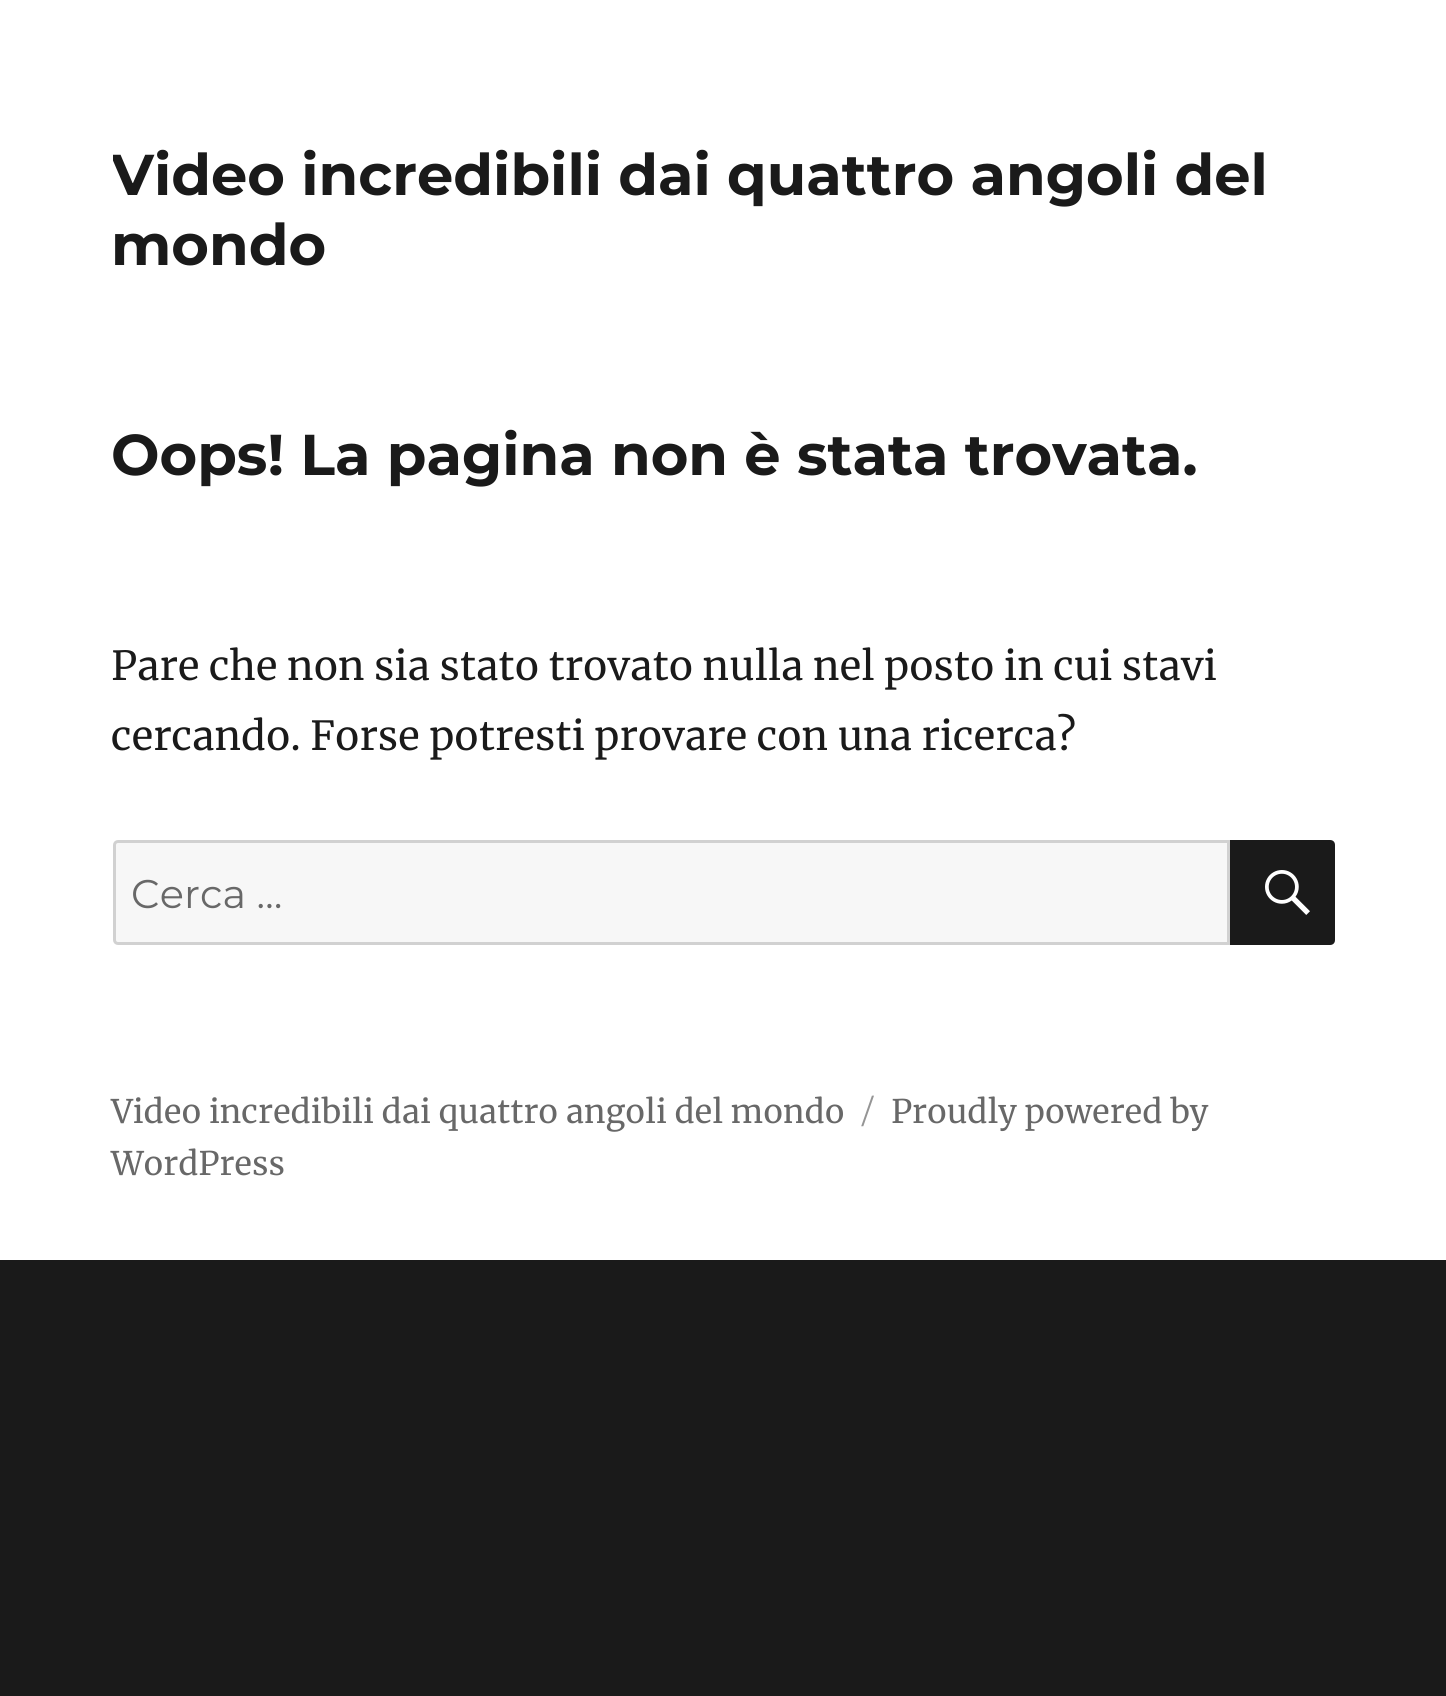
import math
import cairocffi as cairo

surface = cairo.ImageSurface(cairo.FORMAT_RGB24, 1446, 1696)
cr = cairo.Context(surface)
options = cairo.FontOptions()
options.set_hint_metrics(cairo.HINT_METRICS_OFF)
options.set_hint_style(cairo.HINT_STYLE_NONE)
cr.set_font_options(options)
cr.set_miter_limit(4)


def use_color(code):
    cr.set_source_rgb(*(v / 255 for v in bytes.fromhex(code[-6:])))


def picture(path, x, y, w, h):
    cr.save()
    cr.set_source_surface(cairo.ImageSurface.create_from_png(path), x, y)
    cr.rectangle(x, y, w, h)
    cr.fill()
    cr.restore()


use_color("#1a1a1a")
cr.paint()
use_color("#ffffff")
cr.rectangle(0, 0, 1446, 1260)
cr.fill()
cr.save()
cr.rectangle(113, 140, 1222, 140)
cr.clip()
cr.select_font_face("Montserrat Thin")
cr.set_font_size(57.5)
use_color("#1a1a1a")
cr.move_to(111, 195)
cr.show_text("Video incredibili dai quattro angoli del")
cr.restore()
cr.select_font_face("Montserrat Thin")
cr.set_font_size(57.5)
use_color("#1a1a1a")
cr.move_to(111, 265)
cr.show_text("mondo")
cr.move_to(111, 475)
cr.show_text("Oops! La pagina non è stata trovata.")
cr.select_font_face("Merriweather")
cr.set_font_size(40)
cr.move_to(111, 680)
cr.show_text("Pare che non sia stato trovato nulla nel posto in cui stavi")
cr.move_to(111, 750)
cr.show_text("cercando. Forse potresti provare con una ricerca?")
use_color("#f7f7f7")
cr.new_path()
cr.move_to(118, 841.5)
cr.line_to(1228.5, 841.5)
cr.line_to(1228.5, 943.5)
cr.line_to(118, 943.5)
cr.curve_to(116, 943.5, 114.5, 942, 114.5, 940)
cr.line_to(114.5, 845)
cr.curve_to(114.5, 843, 116, 841.5, 118, 841.5)
cr.close_path()
cr.fill_preserve()
use_color("#d1d1d1")
cr.set_line_width(3)
cr.stroke()
cr.select_font_face("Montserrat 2 Thin")
use_color("#686868")
cr.move_to(131, 908)
cr.show_text("Cerca …")
use_color("#1a1a1a")
cr.new_path()
cr.move_to(1230, 840)
cr.line_to(1330, 840)
cr.curve_to(1333, 840, 1335, 842, 1335, 845)
cr.line_to(1335, 940)
cr.curve_to(1335, 943, 1333, 945, 1330, 945)
cr.line_to(1230, 945)
cr.close_path()
cr.fill()
picture("img1.png", 1265, 870, 45, 45)
cr.select_font_face("Merriweather")
cr.set_font_size(32.5)
use_color("#686868")
cr.move_to(111, 1123)
cr.show_text("Video incredibili dai quattro angoli del mondo")
cr.select_font_face("Montserrat 2 Thin")
use_color("#959595")
cr.move_to(862, 1123)
cr.show_text("/")
cr.select_font_face("Merriweather")
use_color("#686868")
cr.move_to(891, 1123)
cr.show_text("Proudly powered by")
cr.move_to(111, 1175)
cr.show_text("WordPress")
surface.write_to_png("result.png")
